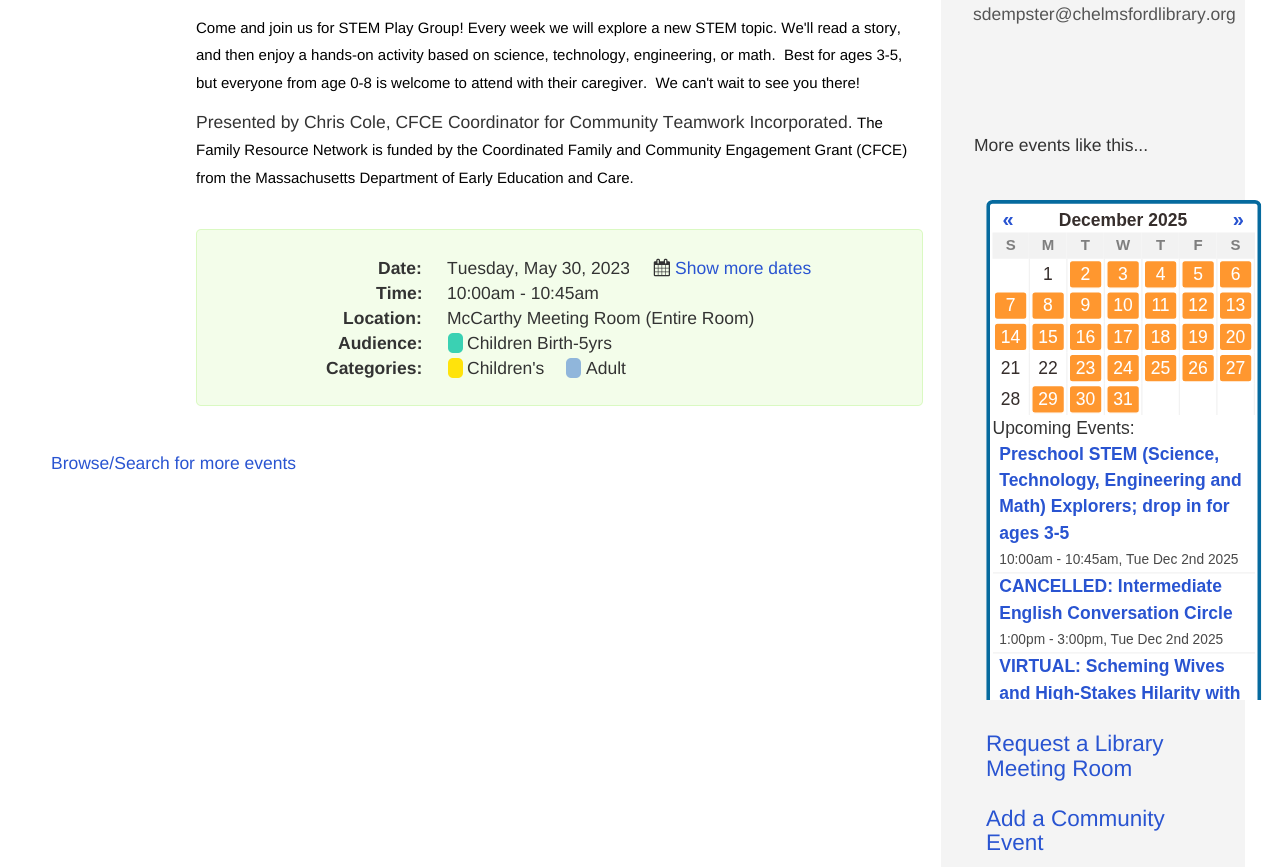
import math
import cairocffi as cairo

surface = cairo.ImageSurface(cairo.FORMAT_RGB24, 1276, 867)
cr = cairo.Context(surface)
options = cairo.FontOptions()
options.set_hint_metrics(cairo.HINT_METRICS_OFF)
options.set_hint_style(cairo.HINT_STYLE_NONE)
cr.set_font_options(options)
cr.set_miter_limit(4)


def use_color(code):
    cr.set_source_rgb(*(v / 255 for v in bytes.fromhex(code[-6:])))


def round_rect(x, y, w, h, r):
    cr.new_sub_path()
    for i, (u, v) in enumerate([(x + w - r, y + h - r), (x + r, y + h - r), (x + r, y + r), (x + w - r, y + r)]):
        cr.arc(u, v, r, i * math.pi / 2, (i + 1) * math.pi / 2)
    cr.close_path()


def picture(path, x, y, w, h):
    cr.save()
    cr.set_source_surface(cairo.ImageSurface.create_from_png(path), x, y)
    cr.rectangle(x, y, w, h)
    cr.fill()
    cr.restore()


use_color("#ffffff")
cr.paint()
cr.select_font_face("Liberation Sans")
cr.set_font_size(15)
use_color("#000000")
cr.move_to(196, 33)
cr.show_text("Come and join us for STEM Play Group! Every week we will explore a new STEM topic. We'll read a story,")
cr.move_to(196, 60)
cr.show_text("and then enjoy a hands-on activity based on science, technology, engineering, or math.  Best for ages 3-5,")
cr.move_to(196, 88)
cr.show_text("but everyone from age 0-8 is welcome to attend with their caregiver.  We can't wait to see you there!")
cr.set_font_size(17.5)
use_color("#333333")
cr.move_to(196, 128)
cr.show_text("Presented by Chris Cole, CFCE Coordinator for Community Teamwork Incorporated.")
cr.set_font_size(15)
use_color("#000000")
cr.move_to(857, 128)
cr.show_text("The")
cr.move_to(196, 155)
cr.show_text("Family Resource Network is funded by the Coordinated Family and Community Engagement Grant (CFCE)")
cr.move_to(196, 183)
cr.show_text("from the Massachusetts Department of Early Education and Care.")
use_color("#f3fdea")
round_rect(196.5, 229.5, 726, 176, 4.5)
cr.fill_preserve()
use_color("#daf9c2")
cr.set_line_width(1)
cr.stroke()
cr.select_font_face("Liberation Sans", cairo.FONT_SLANT_NORMAL, cairo.FONT_WEIGHT_BOLD)
cr.set_font_size(17.5)
use_color("#333333")
cr.move_to(378, 274)
cr.show_text("Date:")
cr.select_font_face("Liberation Sans")
cr.move_to(447, 274)
cr.show_text("Tuesday, May 30, 2023")
picture("img1.png", 653, 258, 17, 19)
use_color("#2954d1")
cr.move_to(675, 274)
cr.show_text("Show more dates")
cr.select_font_face("Liberation Sans", cairo.FONT_SLANT_NORMAL, cairo.FONT_WEIGHT_BOLD)
use_color("#333333")
cr.move_to(376, 299)
cr.show_text("Time:")
cr.select_font_face("Liberation Sans")
cr.move_to(447, 299)
cr.show_text("10:00am - 10:45am")
cr.select_font_face("Liberation Sans", cairo.FONT_SLANT_NORMAL, cairo.FONT_WEIGHT_BOLD)
cr.move_to(343, 324)
cr.show_text("Location:")
cr.select_font_face("Liberation Sans")
cr.move_to(447, 324)
cr.show_text("McCarthy Meeting Room (Entire Room)")
cr.select_font_face("Liberation Sans", cairo.FONT_SLANT_NORMAL, cairo.FONT_WEIGHT_BOLD)
cr.move_to(338, 349)
cr.show_text("Audience:")
use_color("#3ad1b3")
round_rect(448, 333, 15, 20, 5)
cr.fill()
cr.select_font_face("Liberation Sans")
use_color("#333333")
cr.move_to(467, 349)
cr.show_text("Children Birth-5yrs")
cr.select_font_face("Liberation Sans", cairo.FONT_SLANT_NORMAL, cairo.FONT_WEIGHT_BOLD)
cr.move_to(326, 374)
cr.show_text("Categories:")
use_color("#ffe30c")
round_rect(448, 358, 15, 20, 5)
cr.fill()
cr.select_font_face("Liberation Sans")
use_color("#333333")
cr.move_to(467, 374)
cr.show_text("Children's")
use_color("#90b6db")
round_rect(566, 358, 15, 20, 5)
cr.fill()
use_color("#333333")
cr.move_to(586, 374)
cr.show_text("Adult")
use_color("#2954d1")
cr.move_to(51, 469)
cr.show_text("Browse/Search for more events")
use_color("#f4f4f4")
cr.rectangle(941, 0, 304, 867)
cr.fill()
use_color("#555555")
cr.move_to(973, 20)
cr.show_text("sdempster@chelmsfordlibrary.org")
use_color("#333333")
cr.move_to(974, 151)
cr.show_text("More events like this...")
picture("img2.png", 986, 200, 276, 500)
cr.set_font_size(22.5)
use_color("#2954d1")
cr.move_to(986, 751)
cr.show_text("Request a Library")
cr.move_to(986, 776)
cr.show_text("Meeting Room")
cr.move_to(986, 826)
cr.show_text("Add a Community")
cr.move_to(986, 850)
cr.show_text("Event")
surface.write_to_png("result.png")
